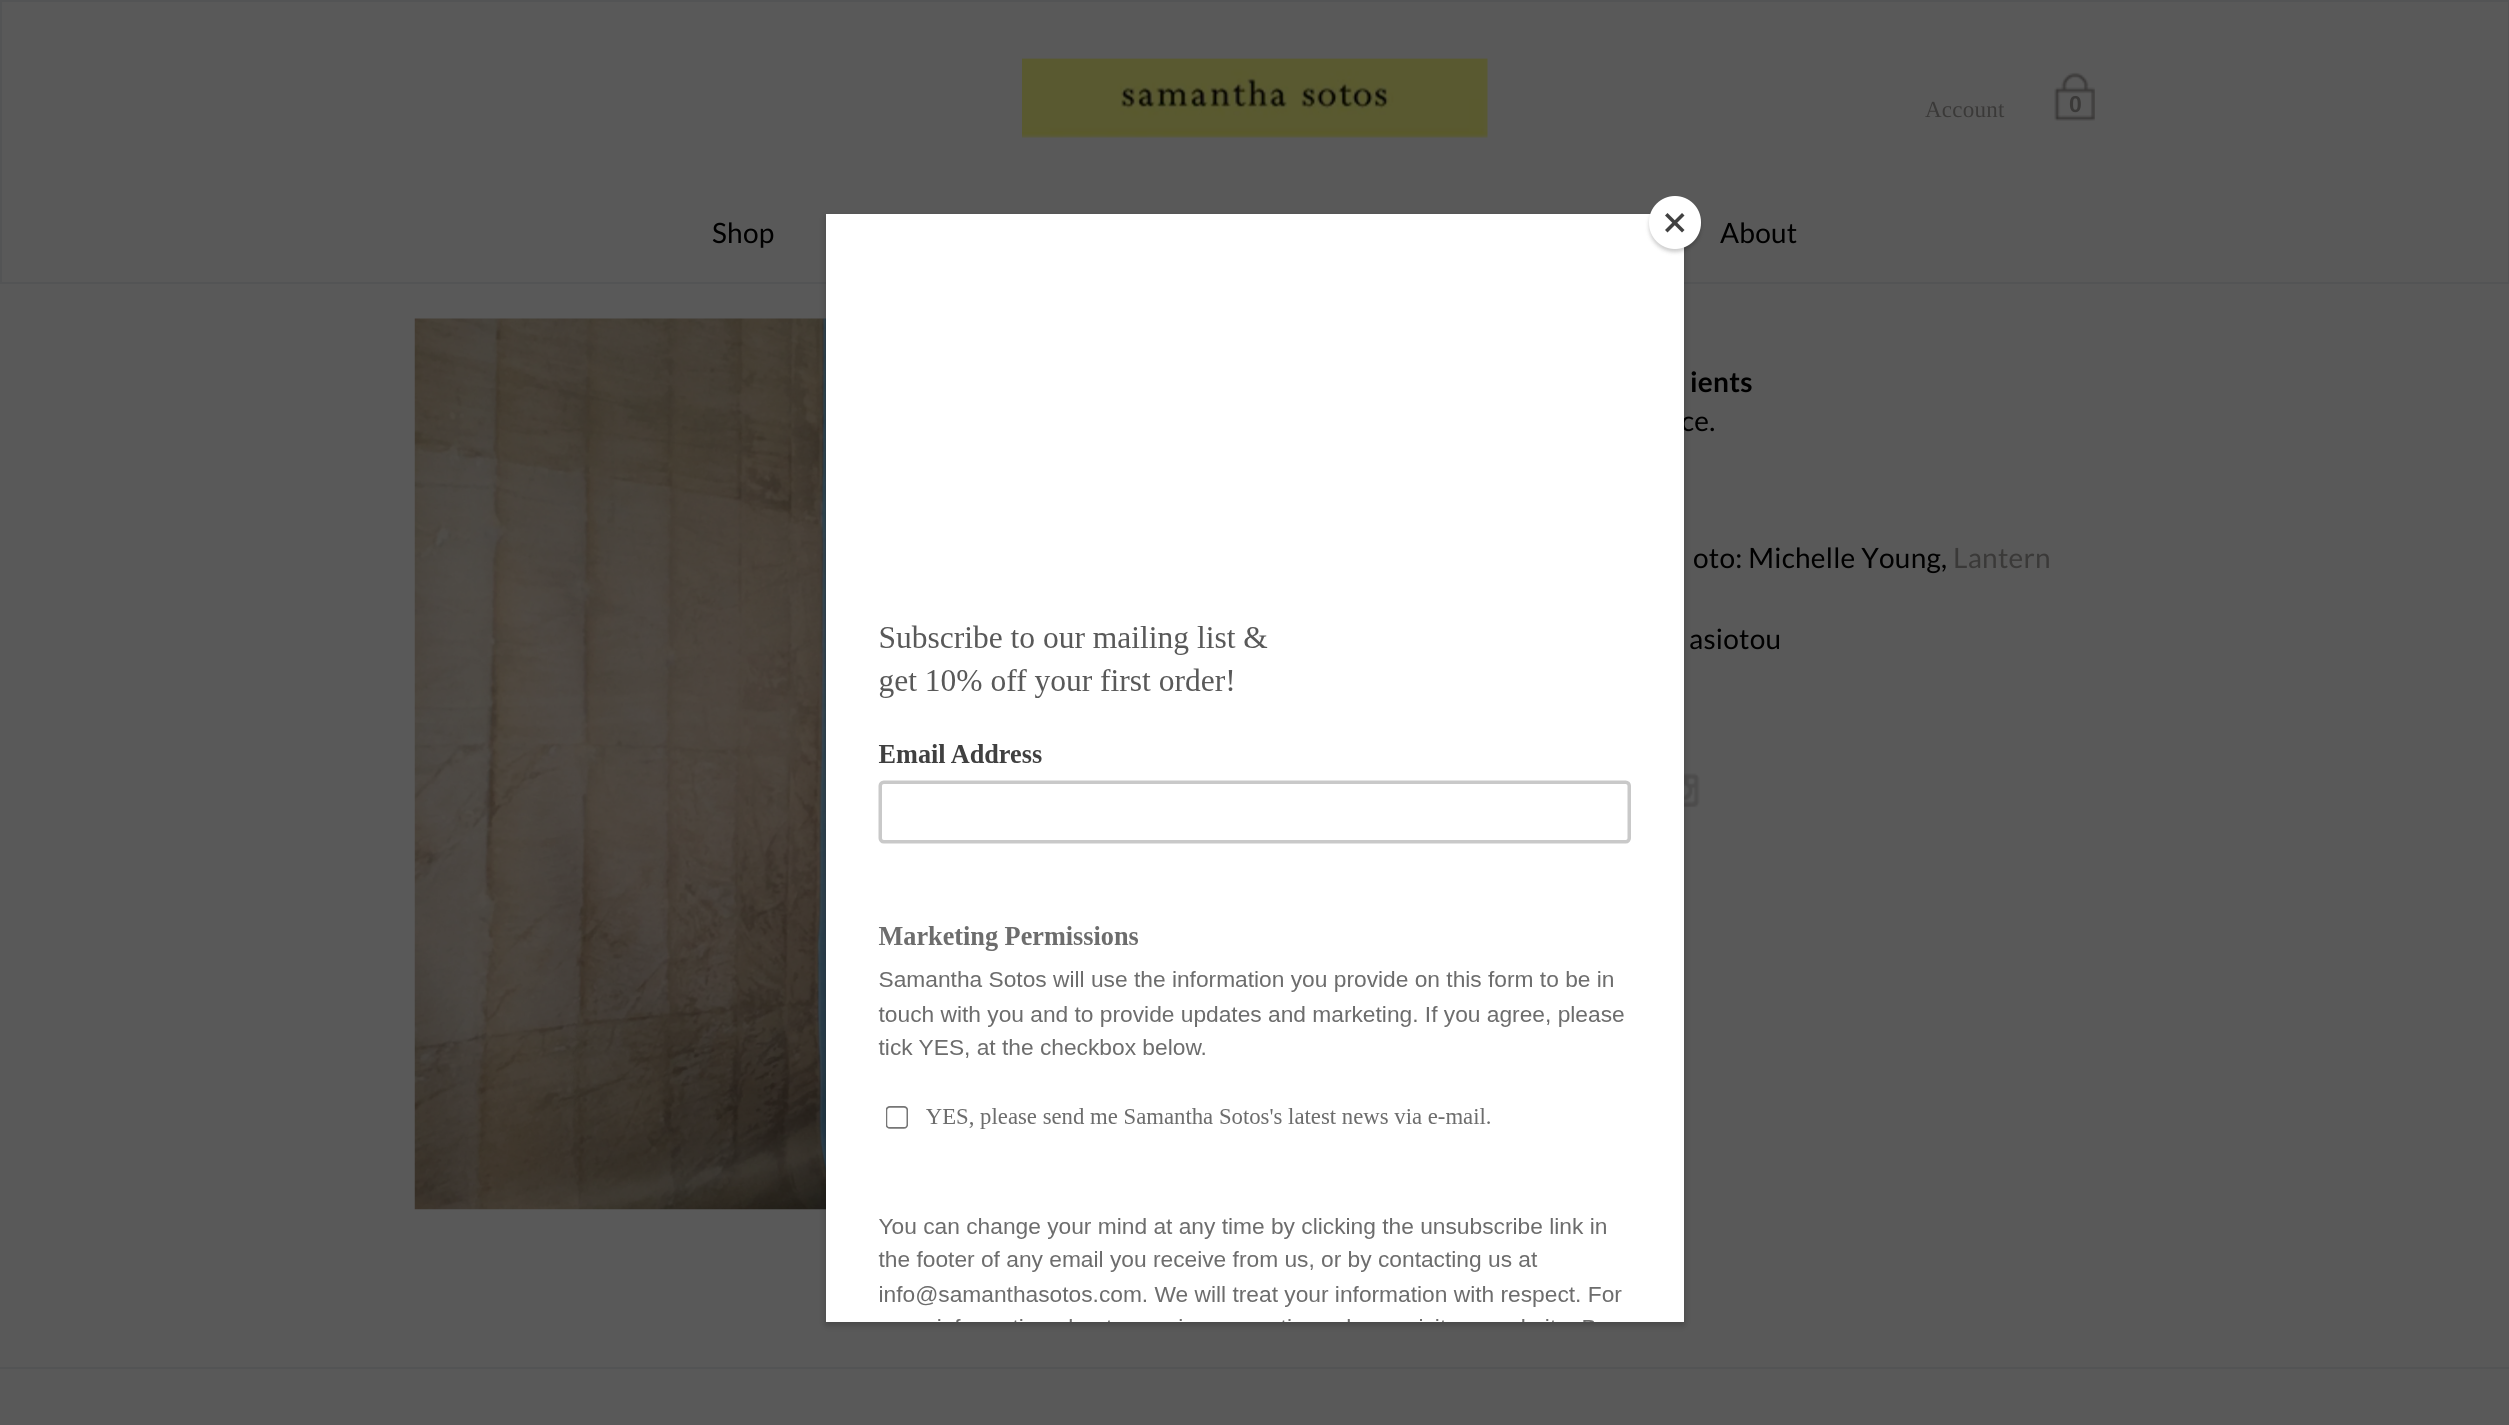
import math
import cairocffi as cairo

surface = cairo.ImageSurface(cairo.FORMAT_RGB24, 2509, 1425)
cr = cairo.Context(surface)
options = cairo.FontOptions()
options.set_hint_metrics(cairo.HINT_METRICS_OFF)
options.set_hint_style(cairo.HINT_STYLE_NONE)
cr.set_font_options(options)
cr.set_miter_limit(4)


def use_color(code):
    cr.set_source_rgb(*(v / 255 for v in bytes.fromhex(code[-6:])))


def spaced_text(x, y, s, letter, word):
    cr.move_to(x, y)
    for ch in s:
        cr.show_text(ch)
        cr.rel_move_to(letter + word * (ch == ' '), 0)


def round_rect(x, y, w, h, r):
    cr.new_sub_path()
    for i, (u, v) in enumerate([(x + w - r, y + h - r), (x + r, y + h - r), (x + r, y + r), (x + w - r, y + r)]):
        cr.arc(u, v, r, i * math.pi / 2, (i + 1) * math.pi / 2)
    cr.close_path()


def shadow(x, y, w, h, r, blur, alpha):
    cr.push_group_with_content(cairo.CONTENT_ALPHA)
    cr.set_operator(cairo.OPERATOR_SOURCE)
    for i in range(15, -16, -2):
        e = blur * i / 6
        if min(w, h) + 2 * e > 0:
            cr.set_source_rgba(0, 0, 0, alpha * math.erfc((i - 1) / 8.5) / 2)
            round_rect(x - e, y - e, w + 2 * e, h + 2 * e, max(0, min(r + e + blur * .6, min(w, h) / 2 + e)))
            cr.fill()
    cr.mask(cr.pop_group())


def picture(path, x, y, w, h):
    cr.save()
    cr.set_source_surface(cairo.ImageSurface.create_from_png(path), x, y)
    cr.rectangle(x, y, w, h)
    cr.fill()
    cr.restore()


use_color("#595959")
cr.paint()
cr.rectangle(1, 1, 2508, 282)
use_color("#535455")
cr.stroke()
picture("img1.png", 1022, 58, 466, 80)
cr.select_font_face("Liberation Serif")
cr.set_font_size(23)
use_color("#3a3938")
spaced_text(1925, 117, "Account", 0.25, 0)
picture("img2.png", 2054, 72, 41, 49)
cr.select_font_face("Liberation Sans", cairo.FONT_SLANT_NORMAL, cairo.FONT_WEIGHT_BOLD)
spaced_text(2069, 112, "0", 0.25, 0)
cr.select_font_face("Lato")
cr.set_font_size(28)
use_color("#000000")
spaced_text(712, 243, "Shop", 0.25, 0)
spaced_text(1720, 243, "About", 0.25, 0)
picture("img4.png", 414, 318, 412, 892)
picture("img5.png", 1684, 773, 16, 35)
use_color("#000000")
shadow(826, 217, 858, 1108, 0, 3.5, 0.2)
use_color("#000000")
spaced_text(1681, 431, "ce.", 0.25, 0)
picture("img3.png", 826, 214, 858, 1108)
use_color("#000000")
shadow(1649, 200, 52, 52, 26, 2, 0.2)
use_color("#ffffff")
round_rect(1649, 196, 52, 53, 26)
cr.fill()
use_color("#414141")
cr.new_path()
cr.move_to(1682, 213)
cr.line_to(1684.5, 215.5)
cr.line_to(1667.5, 232.5)
cr.line_to(1665, 230)
cr.close_path()
cr.fill()
cr.new_path()
cr.move_to(1665, 215.5)
cr.line_to(1667.5, 213)
cr.line_to(1684.5, 230)
cr.line_to(1682, 232.5)
cr.close_path()
cr.fill()
cr.select_font_face("Lato", cairo.FONT_SLANT_NORMAL, cairo.FONT_WEIGHT_BOLD)
use_color("#000000")
spaced_text(1690, 392, "ients", 0.25, 0)
cr.select_font_face("Lato")
spaced_text(1693, 568, "oto: Michelle Young,", 0.25, 0)
use_color("#3a3938")
spaced_text(1953, 568, "Lantern", 0.25, 0)
use_color("#000000")
spaced_text(1689, 649, "asiotou", 0.25, 0)
use_color("#535455")
cr.rectangle(0, 1367, 2509, 2)
cr.fill()
surface.write_to_png("result.png")
